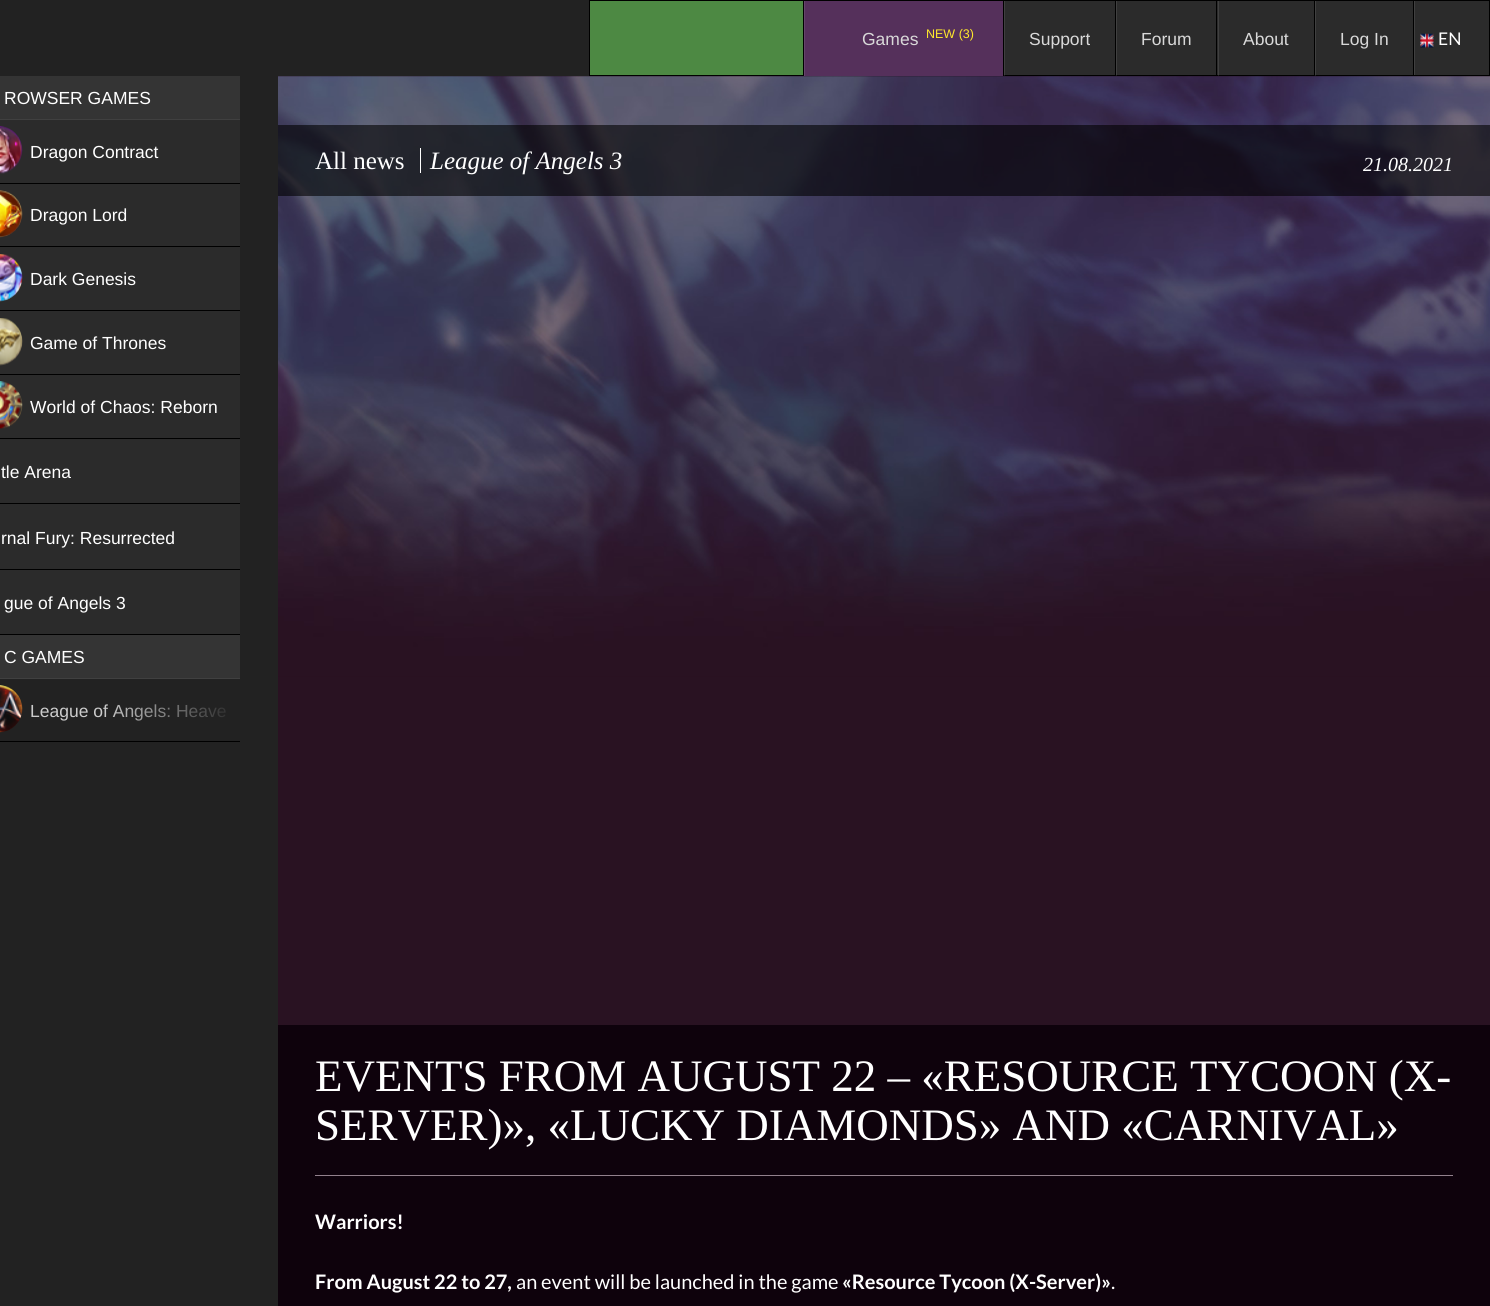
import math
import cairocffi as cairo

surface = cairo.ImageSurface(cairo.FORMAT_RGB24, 1490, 1306)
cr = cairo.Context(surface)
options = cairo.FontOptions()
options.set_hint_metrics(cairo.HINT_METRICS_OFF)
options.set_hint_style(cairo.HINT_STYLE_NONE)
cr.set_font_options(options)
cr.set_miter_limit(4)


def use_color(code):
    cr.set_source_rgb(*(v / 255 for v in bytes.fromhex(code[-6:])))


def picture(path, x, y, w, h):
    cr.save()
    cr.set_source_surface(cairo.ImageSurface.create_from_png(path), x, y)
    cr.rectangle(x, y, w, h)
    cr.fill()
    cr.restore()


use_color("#291222")
cr.paint()
use_color("#222222")
cr.rectangle(0, 0, 589, 76)
cr.fill()
cr.rectangle(589.5, 0.5, 900, 75)
use_color("#000000")
cr.set_line_width(1)
cr.stroke()
use_color("#4d8943")
cr.rectangle(590, 1, 213, 74)
cr.fill()
use_color("#55305b")
cr.rectangle(805, 1, 198, 75)
cr.fill()
use_color("#66456b")
cr.rectangle(804, 1, 1, 75)
cr.fill()
use_color("#000000")
cr.rectangle(803, 1, 1, 75)
cr.fill()
cr.select_font_face("Liberation Sans")
cr.set_font_size(17.5)
use_color("#d9d9d9")
cr.move_to(862, 45)
cr.show_text("Games")
cr.set_font_size(12.5)
use_color("#ffe92b")
cr.move_to(926, 38)
cr.show_text("NEW (3)")
use_color("#2b2b2b")
cr.rectangle(1004, 1, 111, 74)
cr.fill()
cr.set_source_rgba(1, 1, 1, 0.1)
cr.rectangle(1004, 1, 1, 75)
cr.fill()
use_color("#000000")
cr.rectangle(1003, 1, 1, 75)
cr.fill()
cr.set_font_size(17.5)
use_color("#d9d9d9")
cr.move_to(1029, 45)
cr.show_text("Support")
use_color("#2b2b2b")
cr.rectangle(1116, 1, 100, 74)
cr.fill()
cr.set_source_rgba(1, 1, 1, 0.1)
cr.rectangle(1116, 1, 1, 75)
cr.fill()
use_color("#000000")
cr.rectangle(1115, 1, 1, 75)
cr.fill()
use_color("#d9d9d9")
cr.move_to(1141, 45)
cr.show_text("Forum")
use_color("#2b2b2b")
cr.rectangle(1217, 1, 97, 74)
cr.fill()
cr.set_source_rgba(1, 1, 1, 0.1)
cr.rectangle(1218, 1, 1, 75)
cr.fill()
use_color("#000000")
cr.rectangle(1216, 1, 1, 75)
cr.fill()
use_color("#d9d9d9")
cr.move_to(1243, 45)
cr.show_text("About")
use_color("#2b2b2b")
cr.rectangle(1315, 1, 98, 74)
cr.fill()
cr.set_source_rgba(1, 1, 1, 0.1)
cr.rectangle(1315, 1, 1, 75)
cr.fill()
use_color("#000000")
cr.rectangle(1314, 1, 1, 75)
cr.fill()
use_color("#d9d9d9")
cr.move_to(1340, 45)
cr.show_text("Log In")
use_color("#2b2b2b")
cr.rectangle(1415, 1, 74, 74)
cr.fill()
use_color("#404040")
cr.rectangle(1414, 1, 1, 74)
cr.fill()
use_color("#000000")
cr.rectangle(1413, 1, 1, 74)
cr.fill()
picture("img1.png", 1420, 33, 14, 15)
cr.select_font_face("Lato")
use_color("#ffffff")
cr.move_to(1438, 45)
cr.show_text("EN")
use_color("#222222")
cr.rectangle(0, 76, 278, 1230)
cr.fill()
use_color("#343434")
cr.rectangle(0, 76, 240, 43)
cr.fill()
use_color("#404040")
cr.rectangle(0, 119, 240, 1)
cr.fill()
cr.select_font_face("Liberation Sans")
use_color("#ffffff")
cr.move_to(4, 104)
cr.show_text("ROWSER GAMES")
use_color("#2b2b2b")
cr.rectangle(0, 120, 240, 514)
cr.fill()
use_color("#000000")
cr.rectangle(0, 183, 240, 1)
cr.fill()
picture("img2.png", 0, 126, 23, 48)
use_color("#ffffff")
cr.move_to(30, 158)
cr.show_text("Dragon Contract")
use_color("#000000")
cr.rectangle(0, 246, 240, 1)
cr.fill()
picture("img3.png", 0, 190, 23, 48)
use_color("#ffffff")
cr.move_to(30, 221)
cr.show_text("Dragon Lord")
use_color("#000000")
cr.rectangle(0, 310, 240, 1)
cr.fill()
picture("img4.png", 0, 254, 23, 48)
use_color("#ffffff")
cr.move_to(30, 285)
cr.show_text("Dark Genesis")
use_color("#000000")
cr.rectangle(0, 374, 240, 1)
cr.fill()
picture("img5.png", 0, 318, 23, 48)
use_color("#ffffff")
cr.move_to(30, 349)
cr.show_text("Game of Thrones")
use_color("#000000")
cr.rectangle(0, 438, 240, 1)
cr.fill()
picture("img6.png", 0, 381, 23, 48)
use_color("#ffffff")
cr.move_to(30, 413)
cr.show_text("World of Chaos: Reborn")
use_color("#000000")
cr.rectangle(0, 503, 240, 1)
cr.fill()
use_color("#ffffff")
cr.move_to(1, 478)
cr.show_text("tle Arena")
use_color("#000000")
cr.rectangle(0, 569, 240, 1)
cr.fill()
use_color("#ffffff")
cr.move_to(1, 544)
cr.show_text("rnal Fury: Resurrected")
use_color("#000000")
cr.rectangle(0, 634, 240, 1)
cr.fill()
use_color("#ffffff")
cr.move_to(4, 609)
cr.show_text("gue of Angels 3")
use_color("#343434")
cr.rectangle(0, 635, 240, 43)
cr.fill()
use_color("#404040")
cr.rectangle(0, 678, 240, 1)
cr.fill()
use_color("#ffffff")
cr.move_to(4, 663)
cr.show_text("C GAMES")
use_color("#000000")
cr.rectangle(0, 741, 240, 1)
cr.fill()
picture("img7.png", 0, 685, 23, 48)
gradient = cairo.LinearGradient(-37, 711, 240, 711)
gradient.add_color_stop_rgba(0.5, 0.8, 0.8, 0.8, 1)
gradient.add_color_stop_rgba(1, 0.133, 0.133, 0.133, 1)
cr.set_source(gradient)
cr.move_to(30, 717)
cr.show_text("League of Angels: Heave")
picture("img8.png", 278, 76, 1212, 601)
cr.set_source_rgba(0, 0, 0, 0.6)
cr.rectangle(278, 125, 1212, 71)
cr.fill()
cr.select_font_face("Liberation Serif")
cr.set_font_size(25)
use_color("#ffffff")
cr.move_to(315, 169)
cr.show_text("All news")
cr.rectangle(420, 148, 1, 25)
cr.fill()
cr.select_font_face("Liberation Serif", cairo.FONT_SLANT_ITALIC)
cr.move_to(430, 169)
cr.show_text("League of Angels 3")
cr.set_font_size(20)
cr.move_to(1363, 171)
cr.show_text("21.08.2021")
use_color("#0e020c")
cr.rectangle(278, 1025, 1212, 281)
cr.fill()
use_color("#92818d")
cr.rectangle(315, 1175, 1138, 1)
cr.fill()
cr.select_font_face("Liberation Serif")
cr.set_font_size(45)
use_color("#ffffff")
cr.move_to(315, 1091)
cr.show_text("EVENTS FROM AUGUST 22 – «RESOURCE TYCOON (X-")
cr.move_to(315, 1140)
cr.show_text("SERVER)», «LUCKY DIAMONDS» AND «CARNIVAL»")
cr.select_font_face("Lato", cairo.FONT_SLANT_NORMAL, cairo.FONT_WEIGHT_BOLD)
cr.set_font_size(20)
cr.move_to(315, 1229)
cr.show_text("Warriors!")
cr.move_to(315, 1289)
cr.show_text("From August 22 to 27,")
cr.select_font_face("Lato")
cr.move_to(516, 1289)
cr.show_text("an event will be launched in the game")
cr.select_font_face("Lato", cairo.FONT_SLANT_NORMAL, cairo.FONT_WEIGHT_BOLD)
cr.move_to(842, 1289)
cr.show_text("«Resource Tycoon (X-Server)»")
cr.select_font_face("Lato")
cr.move_to(1111, 1289)
cr.show_text(".")
surface.write_to_png("result.png")
